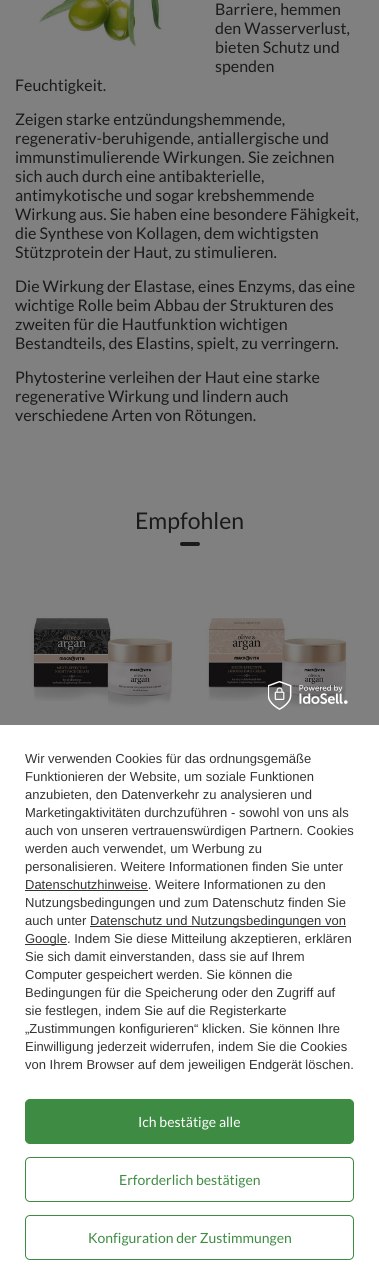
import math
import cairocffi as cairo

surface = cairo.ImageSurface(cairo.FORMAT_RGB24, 379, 1285)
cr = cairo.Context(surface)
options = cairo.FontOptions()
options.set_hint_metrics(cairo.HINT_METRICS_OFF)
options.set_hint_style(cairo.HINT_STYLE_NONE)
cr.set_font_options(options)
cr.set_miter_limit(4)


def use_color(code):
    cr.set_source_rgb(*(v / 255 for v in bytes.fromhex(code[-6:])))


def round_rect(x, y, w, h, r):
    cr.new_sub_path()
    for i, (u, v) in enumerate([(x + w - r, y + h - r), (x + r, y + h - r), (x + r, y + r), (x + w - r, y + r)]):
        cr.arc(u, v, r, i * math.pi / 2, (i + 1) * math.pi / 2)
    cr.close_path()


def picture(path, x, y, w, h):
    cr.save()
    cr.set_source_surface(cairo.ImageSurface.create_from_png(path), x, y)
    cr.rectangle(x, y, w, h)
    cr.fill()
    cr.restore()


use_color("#808080")
cr.paint()
picture("img1.png", 38, 0, 124, 46)
cr.select_font_face("Lato")
cr.set_font_size(16)
use_color("#1a1a1a")
cr.move_to(215, 15)
cr.show_text("Barriere, hemmen")
cr.move_to(215, 34)
cr.show_text("den Wasserverlust,")
cr.move_to(215, 53)
cr.show_text("bieten Schutz und")
cr.move_to(215, 72)
cr.show_text("spenden")
cr.move_to(15, 91)
cr.show_text("Feuchtigkeit.")
cr.move_to(15, 125)
cr.show_text("Zeigen starke entzündungshemmende,")
cr.move_to(15, 144)
cr.show_text("regenerativ-beruhigende, antiallergische und")
cr.move_to(15, 163)
cr.show_text("immunstimulierende Wirkungen. Sie zeichnen")
cr.move_to(15, 182)
cr.show_text("sich auch durch eine antibakterielle,")
cr.move_to(15, 201)
cr.show_text("antimykotische und sogar krebshemmende")
cr.move_to(15, 220)
cr.show_text("Wirkung aus. Sie haben eine besondere Fähigkeit,")
cr.move_to(15, 239)
cr.show_text("die Synthese von Kollagen, dem wichtigsten")
cr.move_to(15, 258)
cr.show_text("Stützprotein der Haut, zu stimulieren.")
cr.move_to(15, 292)
cr.show_text("Die Wirkung der Elastase, eines Enzyms, das eine")
cr.move_to(15, 311)
cr.show_text("wichtige Rolle beim Abbau der Strukturen des")
cr.move_to(15, 330)
cr.show_text("zweiten für die Hautfunktion wichtigen")
cr.move_to(15, 349)
cr.show_text("Bestandteils, des Elastins, spielt, zu verringern.")
cr.move_to(15, 383)
cr.show_text("Phytosterine verleihen der Haut eine starke")
cr.move_to(15, 402)
cr.show_text("regenerative Wirkung und lindern auch")
cr.move_to(15, 421)
cr.show_text("verschiedene Arten von Rötungen.")
cr.set_font_size(23)
cr.move_to(135, 529)
cr.show_text("Empfohlen")
round_rect(180, 542, 20, 4, 2)
cr.fill()
picture("img2.png", 30, 581, 145, 144)
picture("img3.png", 205, 581, 144, 144)
use_color("#ffffff")
cr.rectangle(0, 725, 379, 560)
cr.fill()
picture("img4.png", 268, 681, 80, 29)
cr.select_font_face("Liberation Sans")
cr.set_font_size(13)
use_color("#333333")
cr.move_to(25, 763)
cr.show_text("Wir verwenden Cookies für das ordnungsgemäße")
cr.move_to(25, 781)
cr.show_text("Funktionieren der Website, um soziale Funktionen")
cr.move_to(25, 799)
cr.show_text("anzubieten, den Datenverkehr zu analysieren und")
cr.move_to(25, 817)
cr.show_text("Marketingaktivitäten durchzuführen - sowohl von uns als")
cr.move_to(25, 835)
cr.show_text("auch von unseren vertrauenswürdigen Partnern. Cookies")
cr.move_to(25, 853)
cr.show_text("werden auch verwendet, um Werbung zu")
cr.move_to(25, 871)
cr.show_text("personalisieren. Weitere Informationen finden Sie unter")
cr.move_to(25, 889)
cr.show_text("Datenschutzhinweise. Weitere Informationen zu den")
cr.rectangle(25, 890, 123, 1)
cr.fill()
cr.move_to(25, 907)
cr.show_text("Nutzungsbedingungen und zum Datenschutz finden Sie")
cr.move_to(25, 925)
cr.show_text("auch unter")
cr.rectangle(90, 926, 256, 1)
cr.fill()
cr.move_to(90, 925)
cr.show_text("Datenschutz und Nutzungsbedingungen von")
cr.rectangle(25, 944, 42, 1)
cr.fill()
cr.move_to(25, 943)
cr.show_text("Google. Indem Sie diese Mitteilung akzeptieren, erklären")
cr.move_to(25, 961)
cr.show_text("Sie sich damit einverstanden, dass sie auf Ihrem")
cr.move_to(25, 979)
cr.show_text("Computer gespeichert werden. Sie können die")
cr.move_to(25, 997)
cr.show_text("Bedingungen für die Speicherung oder den Zugriff auf")
cr.move_to(25, 1015)
cr.show_text("sie festlegen, indem Sie auf die Registerkarte")
cr.move_to(25, 1033)
cr.show_text("„Zustimmungen konfigurieren“ klicken. Sie können Ihre")
cr.move_to(25, 1051)
cr.show_text("Einwilligung jederzeit widerrufen, indem Sie die Cookies")
cr.move_to(25, 1069)
cr.show_text("von Ihrem Browser auf dem jeweiligen Endgerät löschen.")
use_color("#3e8c43")
round_rect(25.5, 1099.5, 328, 44, 4.5)
cr.fill_preserve()
cr.set_line_width(1)
cr.stroke()
cr.select_font_face("Lato")
cr.set_font_size(14)
use_color("#ffffff")
cr.move_to(138, 1127)
cr.show_text("Ich bestätige alle")
round_rect(25.5, 1157.5, 328, 44, 4.5)
use_color("#3e8c43")
cr.stroke()
cr.move_to(119, 1185)
cr.show_text("Erforderlich bestätigen")
round_rect(25.5, 1215.5, 328, 44, 4.5)
cr.stroke()
cr.move_to(88, 1243)
cr.show_text("Konfiguration der Zustimmungen")
surface.write_to_png("result.png")
